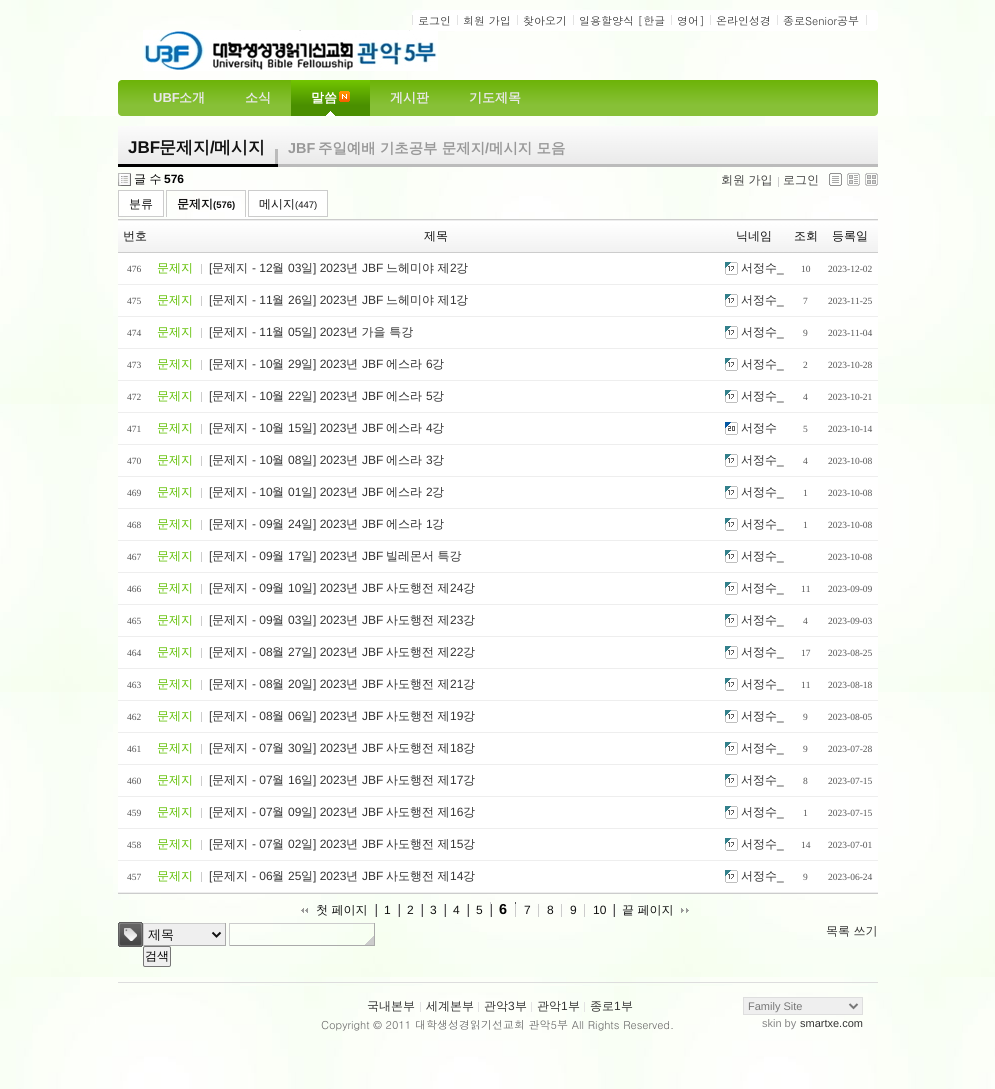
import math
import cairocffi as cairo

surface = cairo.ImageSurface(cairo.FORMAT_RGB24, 995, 1089)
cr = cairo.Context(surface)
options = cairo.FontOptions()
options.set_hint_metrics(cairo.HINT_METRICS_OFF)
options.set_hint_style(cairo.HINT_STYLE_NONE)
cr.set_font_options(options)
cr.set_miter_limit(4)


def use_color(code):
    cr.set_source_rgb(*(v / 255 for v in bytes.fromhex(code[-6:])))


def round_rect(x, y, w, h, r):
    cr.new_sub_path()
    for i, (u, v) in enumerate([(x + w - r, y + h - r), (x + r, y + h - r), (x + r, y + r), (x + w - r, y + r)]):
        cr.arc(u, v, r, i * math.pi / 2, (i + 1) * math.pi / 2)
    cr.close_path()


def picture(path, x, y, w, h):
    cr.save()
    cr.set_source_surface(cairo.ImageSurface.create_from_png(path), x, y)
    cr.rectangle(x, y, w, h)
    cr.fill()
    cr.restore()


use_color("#ffffff")
cr.paint()
picture("img1.png", 0, 977, 995, 112)
picture("img2.png", 0, 0, 995, 116)
picture("img3.png", 143, 30, 295, 41)
use_color("#ffffff")
round_rect(412, 10, 466, 21, 4)
cr.fill()
use_color("#e3e3e3")
cr.rectangle(412, 15, 1, 10)
cr.fill()
cr.select_font_face("Dotum")
cr.set_font_size(11)
use_color("#333333")
cr.move_to(418, 25)
cr.show_text("로그인")
use_color("#e3e3e3")
cr.rectangle(457, 15, 1, 10)
cr.fill()
use_color("#333333")
cr.move_to(463, 25)
cr.show_text("회원 가입")
use_color("#e3e3e3")
cr.rectangle(517, 15, 1, 10)
cr.fill()
use_color("#333333")
cr.move_to(523, 25)
cr.show_text("찾아오기")
use_color("#e3e3e3")
cr.rectangle(573, 15, 1, 10)
cr.fill()
use_color("#333333")
cr.move_to(579, 25)
cr.show_text("일용할양식 [한글")
use_color("#e3e3e3")
cr.rectangle(671, 15, 1, 10)
cr.fill()
use_color("#333333")
cr.move_to(677, 25)
cr.show_text("영어]")
use_color("#e3e3e3")
cr.rectangle(710, 15, 1, 10)
cr.fill()
use_color("#333333")
cr.move_to(716, 25)
cr.show_text("온라인성경")
use_color("#e3e3e3")
cr.rectangle(777, 15, 1, 10)
cr.fill()
use_color("#333333")
cr.move_to(783, 25)
cr.show_text("종로Senior공부")
use_color("#e3e3e3")
cr.rectangle(866, 15, 1, 10)
cr.fill()
gradient = cairo.LinearGradient(498, 80, 498, 116)
gradient.add_color_stop_rgba(0, 0.424, 0.702, 0.027, 1)
gradient.add_color_stop_rgba(0.7, 0.529, 0.753, 0.216, 1)
cr.set_source(gradient)
round_rect(118, 80, 760, 36, 4)
cr.fill()
gradient = cairo.LinearGradient(331, 80, 331, 116)
gradient.add_color_stop_rgba(0, 0.447, 0.769, 0, 1)
gradient.add_color_stop_rgba(0.7, 0.29, 0.561, 0, 1)
cr.set_source(gradient)
cr.rectangle(291, 80, 79, 36)
cr.fill()
cr.select_font_face("Liberation Sans", cairo.FONT_SLANT_NORMAL, cairo.FONT_WEIGHT_BOLD)
cr.set_font_size(13)
use_color("#e8e8e8")
cr.move_to(153, 102)
cr.show_text("UBF")
cr.select_font_face("WenQuanYi Zen Hei", cairo.FONT_SLANT_NORMAL, cairo.FONT_WEIGHT_BOLD)
cr.move_to(179, 102)
cr.show_text("소개")
cr.move_to(245, 102)
cr.show_text("소식")
picture("img4.png", 326, 111, 9, 5)
use_color("#ffffff")
cr.move_to(311, 102)
cr.show_text("말씀")
picture("img5.png", 339, 91, 11, 11)
use_color("#e8e8e8")
cr.move_to(390, 102)
cr.show_text("게시판")
cr.move_to(469, 102)
cr.show_text("기도제목")
picture("img6.png", 0, 116, 995, 861)
use_color("#bbbbbb")
cr.rectangle(118, 126, 760, 41)
cr.fill()
picture("img7.png", 118, 126, 760, 38)
cr.rectangle(275, 149, 3, 15)
cr.fill()
use_color("#000000")
cr.rectangle(118, 164, 160, 3)
cr.fill()
cr.select_font_face("Liberation Sans", cairo.FONT_SLANT_NORMAL, cairo.FONT_WEIGHT_BOLD)
cr.set_font_size(17)
use_color("#111111")
cr.move_to(128, 153)
cr.show_text("JBF")
cr.select_font_face("WenQuanYi Zen Hei", cairo.FONT_SLANT_NORMAL, cairo.FONT_WEIGHT_BOLD)
cr.move_to(159, 153)
cr.show_text("문제지")
cr.select_font_face("Liberation Sans", cairo.FONT_SLANT_NORMAL, cairo.FONT_WEIGHT_BOLD)
cr.move_to(210, 153)
cr.show_text("/")
cr.select_font_face("WenQuanYi Zen Hei", cairo.FONT_SLANT_NORMAL, cairo.FONT_WEIGHT_BOLD)
cr.move_to(214, 153)
cr.show_text("메시지")
cr.select_font_face("Liberation Sans", cairo.FONT_SLANT_NORMAL, cairo.FONT_WEIGHT_BOLD)
cr.set_font_size(14.4)
use_color("#999999")
cr.move_to(288, 153)
cr.show_text("JBF")
cr.select_font_face("WenQuanYi Zen Hei", cairo.FONT_SLANT_NORMAL, cairo.FONT_WEIGHT_BOLD)
cr.move_to(318, 153)
cr.show_text("주일예배 기초공부 문제지")
cr.select_font_face("Liberation Sans", cairo.FONT_SLANT_NORMAL, cairo.FONT_WEIGHT_BOLD)
cr.move_to(485, 153)
cr.show_text("/")
cr.select_font_face("WenQuanYi Zen Hei", cairo.FONT_SLANT_NORMAL, cairo.FONT_WEIGHT_BOLD)
cr.move_to(489, 153)
cr.show_text("메시지 모음")
picture("img8.png", 118, 173, 13, 13)
cr.select_font_face("WenQuanYi Zen Hei Medium")
cr.set_font_size(12)
use_color("#000000")
cr.move_to(134, 183)
cr.show_text("글 수")
cr.select_font_face("Liberation Sans", cairo.FONT_SLANT_NORMAL, cairo.FONT_WEIGHT_BOLD)
cr.move_to(164, 183)
cr.show_text("576")
cr.select_font_face("WenQuanYi Zen Hei Medium")
use_color("#444444")
cr.move_to(721, 184)
cr.show_text("회원 가입")
cr.move_to(783, 184)
cr.show_text("로그인")
use_color("#cccccc")
cr.rectangle(778, 177, 1, 10)
cr.fill()
picture("img9.png", 829, 173, 13, 13)
picture("img10.png", 847, 173, 13, 13)
picture("img11.png", 865, 173, 13, 13)
picture("img12.png", 119, 191, 44, 25)
cr.rectangle(118.5, 190.5, 45, 26)
cr.set_line_width(1)
cr.stroke()
use_color("#111111")
cr.move_to(129, 208)
cr.show_text("분류")
cr.save()
cr.rectangle(118, 190, 760, 27)
cr.clip()
cr.rectangle(166.5, 190.5, 79, 27)
use_color("#cccccc")
cr.stroke()
cr.restore()
cr.select_font_face("WenQuanYi Zen Hei", cairo.FONT_SLANT_NORMAL, cairo.FONT_WEIGHT_BOLD)
cr.move_to(177, 208)
cr.show_text("문제지")
cr.select_font_face("Liberation Sans", cairo.FONT_SLANT_NORMAL, cairo.FONT_WEIGHT_BOLD)
cr.set_font_size(9.5)
cr.move_to(213, 208)
cr.show_text("(576)")
picture("img13.png", 249, 191, 78, 25)
cr.rectangle(248.5, 190.5, 79, 26)
use_color("#cccccc")
cr.stroke()
cr.select_font_face("WenQuanYi Zen Hei Medium")
cr.set_font_size(12)
use_color("#111111")
cr.move_to(259, 208)
cr.show_text("메시지")
cr.select_font_face("Liberation Sans")
cr.set_font_size(9.5)
cr.move_to(295, 208)
cr.show_text("(447)")
use_color("#cccccc")
cr.rectangle(118, 219, 760, 1)
cr.fill()
cr.rectangle(118, 893, 760, 1)
cr.fill()
picture("img14.png", 118, 221, 34, 31)
use_color("#eeeeee")
cr.rectangle(118, 220, 760, 1)
cr.fill()
use_color("#cccccc")
cr.rectangle(118, 252, 760, 1)
cr.fill()
cr.select_font_face("WenQuanYi Zen Hei Medium")
cr.set_font_size(12)
use_color("#111111")
cr.move_to(123, 240)
cr.show_text("번호")
picture("img15.png", 152, 221, 568, 31)
cr.move_to(424, 240)
cr.show_text("제목")
picture("img16.png", 720, 221, 69, 31)
cr.move_to(736, 240)
cr.show_text("닉네임")
picture("img14.png", 789, 221, 34, 31)
cr.move_to(794, 240)
cr.show_text("조회")
picture("img17.png", 823, 221, 55, 31)
cr.move_to(832, 240)
cr.show_text("등록일")
use_color("#ffffff")
cr.rectangle(118, 253, 760, 31)
cr.fill()
use_color("#eeeeee")
cr.rectangle(118, 284, 760, 1)
cr.fill()
cr.select_font_face("Liberation Serif")
cr.set_font_size(9.5)
use_color("#555555")
cr.move_to(127, 272)
cr.show_text("476")
use_color("#cccccc")
cr.rectangle(201, 264, 1, 10)
cr.fill()
cr.select_font_face("WenQuanYi Zen Hei Medium")
cr.set_font_size(12)
use_color("#5fbf00")
cr.move_to(157, 272)
cr.show_text("문제지")
cr.select_font_face("Liberation Sans")
use_color("#333333")
cr.move_to(209, 272)
cr.show_text("[")
cr.select_font_face("WenQuanYi Zen Hei Medium")
cr.move_to(212, 272)
cr.show_text("문제지")
cr.select_font_face("Liberation Sans")
cr.move_to(252, 272)
cr.show_text("- 12")
cr.select_font_face("WenQuanYi Zen Hei Medium")
cr.move_to(272, 272)
cr.show_text("월")
cr.select_font_face("Liberation Sans")
cr.move_to(288, 272)
cr.show_text("03")
cr.select_font_face("WenQuanYi Zen Hei Medium")
cr.move_to(301, 272)
cr.show_text("일")
cr.select_font_face("Liberation Sans")
cr.move_to(313, 272)
cr.show_text("] 2023")
cr.select_font_face("WenQuanYi Zen Hei Medium")
cr.move_to(346, 272)
cr.show_text("년")
cr.select_font_face("Liberation Sans")
cr.move_to(362, 272)
cr.show_text("JBF")
cr.select_font_face("WenQuanYi Zen Hei Medium")
cr.move_to(386, 272)
cr.show_text("느헤미야 제")
cr.select_font_face("Liberation Sans")
cr.move_to(450, 272)
cr.show_text("2")
cr.select_font_face("WenQuanYi Zen Hei Medium")
cr.move_to(456, 272)
cr.show_text("강")
picture("img18.png", 725, 262, 13, 13)
cr.move_to(741, 272)
cr.show_text("서정수")
cr.select_font_face("Liberation Sans")
cr.move_to(777, 272)
cr.show_text("_")
cr.select_font_face("Liberation Serif")
cr.set_font_size(9.5)
use_color("#555555")
cr.move_to(801, 272)
cr.show_text("10")
cr.move_to(828, 272)
cr.show_text("2023-12-02")
use_color("#ffffff")
cr.rectangle(118, 285, 760, 31)
cr.fill()
use_color("#eeeeee")
cr.rectangle(118, 316, 760, 1)
cr.fill()
use_color("#555555")
cr.move_to(127, 304)
cr.show_text("475")
use_color("#cccccc")
cr.rectangle(201, 296, 1, 10)
cr.fill()
cr.select_font_face("WenQuanYi Zen Hei Medium")
cr.set_font_size(12)
use_color("#5fbf00")
cr.move_to(157, 304)
cr.show_text("문제지")
cr.select_font_face("Liberation Sans")
use_color("#333333")
cr.move_to(209, 304)
cr.show_text("[")
cr.select_font_face("WenQuanYi Zen Hei Medium")
cr.move_to(212, 304)
cr.show_text("문제지")
cr.select_font_face("Liberation Sans")
cr.move_to(252, 304)
cr.show_text("- 11")
cr.select_font_face("WenQuanYi Zen Hei Medium")
cr.move_to(272, 304)
cr.show_text("월")
cr.select_font_face("Liberation Sans")
cr.move_to(288, 304)
cr.show_text("26")
cr.select_font_face("WenQuanYi Zen Hei Medium")
cr.move_to(301, 304)
cr.show_text("일")
cr.select_font_face("Liberation Sans")
cr.move_to(313, 304)
cr.show_text("] 2023")
cr.select_font_face("WenQuanYi Zen Hei Medium")
cr.move_to(346, 304)
cr.show_text("년")
cr.select_font_face("Liberation Sans")
cr.move_to(362, 304)
cr.show_text("JBF")
cr.select_font_face("WenQuanYi Zen Hei Medium")
cr.move_to(386, 304)
cr.show_text("느헤미야 제")
cr.select_font_face("Liberation Sans")
cr.move_to(450, 304)
cr.show_text("1")
cr.select_font_face("WenQuanYi Zen Hei Medium")
cr.move_to(456, 304)
cr.show_text("강")
picture("img18.png", 725, 294, 13, 13)
cr.move_to(741, 304)
cr.show_text("서정수")
cr.select_font_face("Liberation Sans")
cr.move_to(777, 304)
cr.show_text("_")
cr.select_font_face("Liberation Serif")
cr.set_font_size(9.5)
use_color("#555555")
cr.move_to(803, 304)
cr.show_text("7")
cr.move_to(828, 304)
cr.show_text("2023-11-25")
use_color("#ffffff")
cr.rectangle(118, 317, 760, 31)
cr.fill()
use_color("#eeeeee")
cr.rectangle(118, 348, 760, 1)
cr.fill()
use_color("#555555")
cr.move_to(127, 336)
cr.show_text("474")
use_color("#cccccc")
cr.rectangle(201, 328, 1, 10)
cr.fill()
cr.select_font_face("WenQuanYi Zen Hei Medium")
cr.set_font_size(12)
use_color("#5fbf00")
cr.move_to(157, 336)
cr.show_text("문제지")
cr.select_font_face("Liberation Sans")
use_color("#333333")
cr.move_to(209, 336)
cr.show_text("[")
cr.select_font_face("WenQuanYi Zen Hei Medium")
cr.move_to(212, 336)
cr.show_text("문제지")
cr.select_font_face("Liberation Sans")
cr.move_to(252, 336)
cr.show_text("- 11")
cr.select_font_face("WenQuanYi Zen Hei Medium")
cr.move_to(272, 336)
cr.show_text("월")
cr.select_font_face("Liberation Sans")
cr.move_to(288, 336)
cr.show_text("05")
cr.select_font_face("WenQuanYi Zen Hei Medium")
cr.move_to(301, 336)
cr.show_text("일")
cr.select_font_face("Liberation Sans")
cr.move_to(313, 336)
cr.show_text("] 2023")
cr.select_font_face("WenQuanYi Zen Hei Medium")
cr.move_to(346, 336)
cr.show_text("년 가을 특강")
picture("img18.png", 725, 326, 13, 13)
cr.move_to(741, 336)
cr.show_text("서정수")
cr.select_font_face("Liberation Sans")
cr.move_to(777, 336)
cr.show_text("_")
cr.select_font_face("Liberation Serif")
cr.set_font_size(9.5)
use_color("#555555")
cr.move_to(803, 336)
cr.show_text("9")
cr.move_to(828, 336)
cr.show_text("2023-11-04")
use_color("#ffffff")
cr.rectangle(118, 349, 760, 31)
cr.fill()
use_color("#eeeeee")
cr.rectangle(118, 380, 760, 1)
cr.fill()
use_color("#555555")
cr.move_to(127, 368)
cr.show_text("473")
use_color("#cccccc")
cr.rectangle(201, 360, 1, 10)
cr.fill()
cr.select_font_face("WenQuanYi Zen Hei Medium")
cr.set_font_size(12)
use_color("#5fbf00")
cr.move_to(157, 368)
cr.show_text("문제지")
cr.select_font_face("Liberation Sans")
use_color("#333333")
cr.move_to(209, 368)
cr.show_text("[")
cr.select_font_face("WenQuanYi Zen Hei Medium")
cr.move_to(212, 368)
cr.show_text("문제지")
cr.select_font_face("Liberation Sans")
cr.move_to(252, 368)
cr.show_text("- 10")
cr.select_font_face("WenQuanYi Zen Hei Medium")
cr.move_to(272, 368)
cr.show_text("월")
cr.select_font_face("Liberation Sans")
cr.move_to(288, 368)
cr.show_text("29")
cr.select_font_face("WenQuanYi Zen Hei Medium")
cr.move_to(301, 368)
cr.show_text("일")
cr.select_font_face("Liberation Sans")
cr.move_to(313, 368)
cr.show_text("] 2023")
cr.select_font_face("WenQuanYi Zen Hei Medium")
cr.move_to(346, 368)
cr.show_text("년")
cr.select_font_face("Liberation Sans")
cr.move_to(362, 368)
cr.show_text("JBF")
cr.select_font_face("WenQuanYi Zen Hei Medium")
cr.move_to(386, 368)
cr.show_text("에스라")
cr.select_font_face("Liberation Sans")
cr.move_to(426, 368)
cr.show_text("6")
cr.select_font_face("WenQuanYi Zen Hei Medium")
cr.move_to(432, 368)
cr.show_text("강")
picture("img18.png", 725, 358, 13, 13)
cr.move_to(741, 368)
cr.show_text("서정수")
cr.select_font_face("Liberation Sans")
cr.move_to(777, 368)
cr.show_text("_")
cr.select_font_face("Liberation Serif")
cr.set_font_size(9.5)
use_color("#555555")
cr.move_to(803, 368)
cr.show_text("2")
cr.move_to(828, 368)
cr.show_text("2023-10-28")
use_color("#ffffff")
cr.rectangle(118, 381, 760, 31)
cr.fill()
use_color("#eeeeee")
cr.rectangle(118, 412, 760, 1)
cr.fill()
use_color("#555555")
cr.move_to(127, 400)
cr.show_text("472")
use_color("#cccccc")
cr.rectangle(201, 392, 1, 10)
cr.fill()
cr.select_font_face("WenQuanYi Zen Hei Medium")
cr.set_font_size(12)
use_color("#5fbf00")
cr.move_to(157, 400)
cr.show_text("문제지")
cr.select_font_face("Liberation Sans")
use_color("#333333")
cr.move_to(209, 400)
cr.show_text("[")
cr.select_font_face("WenQuanYi Zen Hei Medium")
cr.move_to(212, 400)
cr.show_text("문제지")
cr.select_font_face("Liberation Sans")
cr.move_to(252, 400)
cr.show_text("- 10")
cr.select_font_face("WenQuanYi Zen Hei Medium")
cr.move_to(272, 400)
cr.show_text("월")
cr.select_font_face("Liberation Sans")
cr.move_to(288, 400)
cr.show_text("22")
cr.select_font_face("WenQuanYi Zen Hei Medium")
cr.move_to(301, 400)
cr.show_text("일")
cr.select_font_face("Liberation Sans")
cr.move_to(313, 400)
cr.show_text("] 2023")
cr.select_font_face("WenQuanYi Zen Hei Medium")
cr.move_to(346, 400)
cr.show_text("년")
cr.select_font_face("Liberation Sans")
cr.move_to(362, 400)
cr.show_text("JBF")
cr.select_font_face("WenQuanYi Zen Hei Medium")
cr.move_to(386, 400)
cr.show_text("에스라")
cr.select_font_face("Liberation Sans")
cr.move_to(426, 400)
cr.show_text("5")
cr.select_font_face("WenQuanYi Zen Hei Medium")
cr.move_to(432, 400)
cr.show_text("강")
picture("img18.png", 725, 390, 13, 13)
cr.move_to(741, 400)
cr.show_text("서정수")
cr.select_font_face("Liberation Sans")
cr.move_to(777, 400)
cr.show_text("_")
cr.select_font_face("Liberation Serif")
cr.set_font_size(9.5)
use_color("#555555")
cr.move_to(803, 400)
cr.show_text("4")
cr.move_to(828, 400)
cr.show_text("2023-10-21")
use_color("#ffffff")
cr.rectangle(118, 413, 760, 31)
cr.fill()
use_color("#eeeeee")
cr.rectangle(118, 444, 760, 1)
cr.fill()
use_color("#555555")
cr.move_to(127, 432)
cr.show_text("471")
use_color("#cccccc")
cr.rectangle(201, 424, 1, 10)
cr.fill()
cr.select_font_face("WenQuanYi Zen Hei Medium")
cr.set_font_size(12)
use_color("#5fbf00")
cr.move_to(157, 432)
cr.show_text("문제지")
cr.select_font_face("Liberation Sans")
use_color("#333333")
cr.move_to(209, 432)
cr.show_text("[")
cr.select_font_face("WenQuanYi Zen Hei Medium")
cr.move_to(212, 432)
cr.show_text("문제지")
cr.select_font_face("Liberation Sans")
cr.move_to(252, 432)
cr.show_text("- 10")
cr.select_font_face("WenQuanYi Zen Hei Medium")
cr.move_to(272, 432)
cr.show_text("월")
cr.select_font_face("Liberation Sans")
cr.move_to(288, 432)
cr.show_text("15")
cr.select_font_face("WenQuanYi Zen Hei Medium")
cr.move_to(301, 432)
cr.show_text("일")
cr.select_font_face("Liberation Sans")
cr.move_to(313, 432)
cr.show_text("] 2023")
cr.select_font_face("WenQuanYi Zen Hei Medium")
cr.move_to(346, 432)
cr.show_text("년")
cr.select_font_face("Liberation Sans")
cr.move_to(362, 432)
cr.show_text("JBF")
cr.select_font_face("WenQuanYi Zen Hei Medium")
cr.move_to(386, 432)
cr.show_text("에스라")
cr.select_font_face("Liberation Sans")
cr.move_to(426, 432)
cr.show_text("4")
cr.select_font_face("WenQuanYi Zen Hei Medium")
cr.move_to(432, 432)
cr.show_text("강")
picture("img19.png", 725, 422, 13, 13)
cr.move_to(741, 432)
cr.show_text("서정수")
cr.select_font_face("Liberation Serif")
cr.set_font_size(9.5)
use_color("#555555")
cr.move_to(803, 432)
cr.show_text("5")
cr.move_to(828, 432)
cr.show_text("2023-10-14")
use_color("#ffffff")
cr.rectangle(118, 445, 760, 31)
cr.fill()
use_color("#eeeeee")
cr.rectangle(118, 476, 760, 1)
cr.fill()
use_color("#555555")
cr.move_to(127, 464)
cr.show_text("470")
use_color("#cccccc")
cr.rectangle(201, 456, 1, 10)
cr.fill()
cr.select_font_face("WenQuanYi Zen Hei Medium")
cr.set_font_size(12)
use_color("#5fbf00")
cr.move_to(157, 464)
cr.show_text("문제지")
cr.select_font_face("Liberation Sans")
use_color("#333333")
cr.move_to(209, 464)
cr.show_text("[")
cr.select_font_face("WenQuanYi Zen Hei Medium")
cr.move_to(212, 464)
cr.show_text("문제지")
cr.select_font_face("Liberation Sans")
cr.move_to(252, 464)
cr.show_text("- 10")
cr.select_font_face("WenQuanYi Zen Hei Medium")
cr.move_to(272, 464)
cr.show_text("월")
cr.select_font_face("Liberation Sans")
cr.move_to(288, 464)
cr.show_text("08")
cr.select_font_face("WenQuanYi Zen Hei Medium")
cr.move_to(301, 464)
cr.show_text("일")
cr.select_font_face("Liberation Sans")
cr.move_to(313, 464)
cr.show_text("] 2023")
cr.select_font_face("WenQuanYi Zen Hei Medium")
cr.move_to(346, 464)
cr.show_text("년")
cr.select_font_face("Liberation Sans")
cr.move_to(362, 464)
cr.show_text("JBF")
cr.select_font_face("WenQuanYi Zen Hei Medium")
cr.move_to(386, 464)
cr.show_text("에스라")
cr.select_font_face("Liberation Sans")
cr.move_to(426, 464)
cr.show_text("3")
cr.select_font_face("WenQuanYi Zen Hei Medium")
cr.move_to(432, 464)
cr.show_text("강")
picture("img18.png", 725, 454, 13, 13)
cr.move_to(741, 464)
cr.show_text("서정수")
cr.select_font_face("Liberation Sans")
cr.move_to(777, 464)
cr.show_text("_")
cr.select_font_face("Liberation Serif")
cr.set_font_size(9.5)
use_color("#555555")
cr.move_to(803, 464)
cr.show_text("4")
cr.move_to(828, 464)
cr.show_text("2023-10-08")
use_color("#ffffff")
cr.rectangle(118, 477, 760, 31)
cr.fill()
use_color("#eeeeee")
cr.rectangle(118, 508, 760, 1)
cr.fill()
use_color("#555555")
cr.move_to(127, 496)
cr.show_text("469")
use_color("#cccccc")
cr.rectangle(201, 488, 1, 10)
cr.fill()
cr.select_font_face("WenQuanYi Zen Hei Medium")
cr.set_font_size(12)
use_color("#5fbf00")
cr.move_to(157, 496)
cr.show_text("문제지")
cr.select_font_face("Liberation Sans")
use_color("#333333")
cr.move_to(209, 496)
cr.show_text("[")
cr.select_font_face("WenQuanYi Zen Hei Medium")
cr.move_to(212, 496)
cr.show_text("문제지")
cr.select_font_face("Liberation Sans")
cr.move_to(252, 496)
cr.show_text("- 10")
cr.select_font_face("WenQuanYi Zen Hei Medium")
cr.move_to(272, 496)
cr.show_text("월")
cr.select_font_face("Liberation Sans")
cr.move_to(288, 496)
cr.show_text("01")
cr.select_font_face("WenQuanYi Zen Hei Medium")
cr.move_to(301, 496)
cr.show_text("일")
cr.select_font_face("Liberation Sans")
cr.move_to(313, 496)
cr.show_text("] 2023")
cr.select_font_face("WenQuanYi Zen Hei Medium")
cr.move_to(346, 496)
cr.show_text("년")
cr.select_font_face("Liberation Sans")
cr.move_to(362, 496)
cr.show_text("JBF")
cr.select_font_face("WenQuanYi Zen Hei Medium")
cr.move_to(386, 496)
cr.show_text("에스라")
cr.select_font_face("Liberation Sans")
cr.move_to(426, 496)
cr.show_text("2")
cr.select_font_face("WenQuanYi Zen Hei Medium")
cr.move_to(432, 496)
cr.show_text("강")
picture("img18.png", 725, 486, 13, 13)
cr.move_to(741, 496)
cr.show_text("서정수")
cr.select_font_face("Liberation Sans")
cr.move_to(777, 496)
cr.show_text("_")
cr.select_font_face("Liberation Serif")
cr.set_font_size(9.5)
use_color("#555555")
cr.move_to(803, 496)
cr.show_text("1")
cr.move_to(828, 496)
cr.show_text("2023-10-08")
use_color("#ffffff")
cr.rectangle(118, 509, 760, 31)
cr.fill()
use_color("#eeeeee")
cr.rectangle(118, 540, 760, 1)
cr.fill()
use_color("#555555")
cr.move_to(127, 528)
cr.show_text("468")
use_color("#cccccc")
cr.rectangle(201, 520, 1, 10)
cr.fill()
cr.select_font_face("WenQuanYi Zen Hei Medium")
cr.set_font_size(12)
use_color("#5fbf00")
cr.move_to(157, 528)
cr.show_text("문제지")
cr.select_font_face("Liberation Sans")
use_color("#333333")
cr.move_to(209, 528)
cr.show_text("[")
cr.select_font_face("WenQuanYi Zen Hei Medium")
cr.move_to(212, 528)
cr.show_text("문제지")
cr.select_font_face("Liberation Sans")
cr.move_to(252, 528)
cr.show_text("- 09")
cr.select_font_face("WenQuanYi Zen Hei Medium")
cr.move_to(272, 528)
cr.show_text("월")
cr.select_font_face("Liberation Sans")
cr.move_to(288, 528)
cr.show_text("24")
cr.select_font_face("WenQuanYi Zen Hei Medium")
cr.move_to(301, 528)
cr.show_text("일")
cr.select_font_face("Liberation Sans")
cr.move_to(313, 528)
cr.show_text("] 2023")
cr.select_font_face("WenQuanYi Zen Hei Medium")
cr.move_to(346, 528)
cr.show_text("년")
cr.select_font_face("Liberation Sans")
cr.move_to(362, 528)
cr.show_text("JBF")
cr.select_font_face("WenQuanYi Zen Hei Medium")
cr.move_to(386, 528)
cr.show_text("에스라")
cr.select_font_face("Liberation Sans")
cr.move_to(426, 528)
cr.show_text("1")
cr.select_font_face("WenQuanYi Zen Hei Medium")
cr.move_to(432, 528)
cr.show_text("강")
picture("img18.png", 725, 518, 13, 13)
cr.move_to(741, 528)
cr.show_text("서정수")
cr.select_font_face("Liberation Sans")
cr.move_to(777, 528)
cr.show_text("_")
cr.select_font_face("Liberation Serif")
cr.set_font_size(9.5)
use_color("#555555")
cr.move_to(803, 528)
cr.show_text("1")
cr.move_to(828, 528)
cr.show_text("2023-10-08")
use_color("#ffffff")
cr.rectangle(118, 541, 760, 31)
cr.fill()
use_color("#eeeeee")
cr.rectangle(118, 572, 760, 1)
cr.fill()
use_color("#555555")
cr.move_to(127, 560)
cr.show_text("467")
use_color("#cccccc")
cr.rectangle(201, 552, 1, 10)
cr.fill()
cr.select_font_face("WenQuanYi Zen Hei Medium")
cr.set_font_size(12)
use_color("#5fbf00")
cr.move_to(157, 560)
cr.show_text("문제지")
cr.select_font_face("Liberation Sans")
use_color("#333333")
cr.move_to(209, 560)
cr.show_text("[")
cr.select_font_face("WenQuanYi Zen Hei Medium")
cr.move_to(212, 560)
cr.show_text("문제지")
cr.select_font_face("Liberation Sans")
cr.move_to(252, 560)
cr.show_text("- 09")
cr.select_font_face("WenQuanYi Zen Hei Medium")
cr.move_to(272, 560)
cr.show_text("월")
cr.select_font_face("Liberation Sans")
cr.move_to(288, 560)
cr.show_text("17")
cr.select_font_face("WenQuanYi Zen Hei Medium")
cr.move_to(301, 560)
cr.show_text("일")
cr.select_font_face("Liberation Sans")
cr.move_to(313, 560)
cr.show_text("] 2023")
cr.select_font_face("WenQuanYi Zen Hei Medium")
cr.move_to(346, 560)
cr.show_text("년")
cr.select_font_face("Liberation Sans")
cr.move_to(362, 560)
cr.show_text("JBF")
cr.select_font_face("WenQuanYi Zen Hei Medium")
cr.move_to(386, 560)
cr.show_text("빌레몬서 특강")
picture("img18.png", 725, 550, 13, 13)
cr.move_to(741, 560)
cr.show_text("서정수")
cr.select_font_face("Liberation Sans")
cr.move_to(777, 560)
cr.show_text("_")
cr.select_font_face("Liberation Serif")
cr.set_font_size(9.5)
use_color("#555555")
cr.move_to(828, 560)
cr.show_text("2023-10-08")
use_color("#ffffff")
cr.rectangle(118, 573, 760, 31)
cr.fill()
use_color("#eeeeee")
cr.rectangle(118, 604, 760, 1)
cr.fill()
use_color("#555555")
cr.move_to(127, 592)
cr.show_text("466")
use_color("#cccccc")
cr.rectangle(201, 584, 1, 10)
cr.fill()
cr.select_font_face("WenQuanYi Zen Hei Medium")
cr.set_font_size(12)
use_color("#5fbf00")
cr.move_to(157, 592)
cr.show_text("문제지")
cr.select_font_face("Liberation Sans")
use_color("#333333")
cr.move_to(209, 592)
cr.show_text("[")
cr.select_font_face("WenQuanYi Zen Hei Medium")
cr.move_to(212, 592)
cr.show_text("문제지")
cr.select_font_face("Liberation Sans")
cr.move_to(252, 592)
cr.show_text("- 09")
cr.select_font_face("WenQuanYi Zen Hei Medium")
cr.move_to(272, 592)
cr.show_text("월")
cr.select_font_face("Liberation Sans")
cr.move_to(288, 592)
cr.show_text("10")
cr.select_font_face("WenQuanYi Zen Hei Medium")
cr.move_to(301, 592)
cr.show_text("일")
cr.select_font_face("Liberation Sans")
cr.move_to(313, 592)
cr.show_text("] 2023")
cr.select_font_face("WenQuanYi Zen Hei Medium")
cr.move_to(346, 592)
cr.show_text("년")
cr.select_font_face("Liberation Sans")
cr.move_to(362, 592)
cr.show_text("JBF")
cr.select_font_face("WenQuanYi Zen Hei Medium")
cr.move_to(386, 592)
cr.show_text("사도행전 제")
cr.select_font_face("Liberation Sans")
cr.move_to(450, 592)
cr.show_text("24")
cr.select_font_face("WenQuanYi Zen Hei Medium")
cr.move_to(463, 592)
cr.show_text("강")
picture("img18.png", 725, 582, 13, 13)
cr.move_to(741, 592)
cr.show_text("서정수")
cr.select_font_face("Liberation Sans")
cr.move_to(777, 592)
cr.show_text("_")
cr.select_font_face("Liberation Serif")
cr.set_font_size(9.5)
use_color("#555555")
cr.move_to(801, 592)
cr.show_text("11")
cr.move_to(828, 592)
cr.show_text("2023-09-09")
use_color("#ffffff")
cr.rectangle(118, 605, 760, 31)
cr.fill()
use_color("#eeeeee")
cr.rectangle(118, 636, 760, 1)
cr.fill()
use_color("#555555")
cr.move_to(127, 624)
cr.show_text("465")
use_color("#cccccc")
cr.rectangle(201, 616, 1, 10)
cr.fill()
cr.select_font_face("WenQuanYi Zen Hei Medium")
cr.set_font_size(12)
use_color("#5fbf00")
cr.move_to(157, 624)
cr.show_text("문제지")
cr.select_font_face("Liberation Sans")
use_color("#333333")
cr.move_to(209, 624)
cr.show_text("[")
cr.select_font_face("WenQuanYi Zen Hei Medium")
cr.move_to(212, 624)
cr.show_text("문제지")
cr.select_font_face("Liberation Sans")
cr.move_to(252, 624)
cr.show_text("- 09")
cr.select_font_face("WenQuanYi Zen Hei Medium")
cr.move_to(272, 624)
cr.show_text("월")
cr.select_font_face("Liberation Sans")
cr.move_to(288, 624)
cr.show_text("03")
cr.select_font_face("WenQuanYi Zen Hei Medium")
cr.move_to(301, 624)
cr.show_text("일")
cr.select_font_face("Liberation Sans")
cr.move_to(313, 624)
cr.show_text("] 2023")
cr.select_font_face("WenQuanYi Zen Hei Medium")
cr.move_to(346, 624)
cr.show_text("년")
cr.select_font_face("Liberation Sans")
cr.move_to(362, 624)
cr.show_text("JBF")
cr.select_font_face("WenQuanYi Zen Hei Medium")
cr.move_to(386, 624)
cr.show_text("사도행전 제")
cr.select_font_face("Liberation Sans")
cr.move_to(450, 624)
cr.show_text("23")
cr.select_font_face("WenQuanYi Zen Hei Medium")
cr.move_to(463, 624)
cr.show_text("강")
picture("img18.png", 725, 614, 13, 13)
cr.move_to(741, 624)
cr.show_text("서정수")
cr.select_font_face("Liberation Sans")
cr.move_to(777, 624)
cr.show_text("_")
cr.select_font_face("Liberation Serif")
cr.set_font_size(9.5)
use_color("#555555")
cr.move_to(803, 624)
cr.show_text("4")
cr.move_to(828, 624)
cr.show_text("2023-09-03")
use_color("#ffffff")
cr.rectangle(118, 637, 760, 31)
cr.fill()
use_color("#eeeeee")
cr.rectangle(118, 668, 760, 1)
cr.fill()
use_color("#555555")
cr.move_to(127, 656)
cr.show_text("464")
use_color("#cccccc")
cr.rectangle(201, 648, 1, 10)
cr.fill()
cr.select_font_face("WenQuanYi Zen Hei Medium")
cr.set_font_size(12)
use_color("#5fbf00")
cr.move_to(157, 656)
cr.show_text("문제지")
cr.select_font_face("Liberation Sans")
use_color("#333333")
cr.move_to(209, 656)
cr.show_text("[")
cr.select_font_face("WenQuanYi Zen Hei Medium")
cr.move_to(212, 656)
cr.show_text("문제지")
cr.select_font_face("Liberation Sans")
cr.move_to(252, 656)
cr.show_text("- 08")
cr.select_font_face("WenQuanYi Zen Hei Medium")
cr.move_to(272, 656)
cr.show_text("월")
cr.select_font_face("Liberation Sans")
cr.move_to(288, 656)
cr.show_text("27")
cr.select_font_face("WenQuanYi Zen Hei Medium")
cr.move_to(301, 656)
cr.show_text("일")
cr.select_font_face("Liberation Sans")
cr.move_to(313, 656)
cr.show_text("] 2023")
cr.select_font_face("WenQuanYi Zen Hei Medium")
cr.move_to(346, 656)
cr.show_text("년")
cr.select_font_face("Liberation Sans")
cr.move_to(362, 656)
cr.show_text("JBF")
cr.select_font_face("WenQuanYi Zen Hei Medium")
cr.move_to(386, 656)
cr.show_text("사도행전 제")
cr.select_font_face("Liberation Sans")
cr.move_to(450, 656)
cr.show_text("22")
cr.select_font_face("WenQuanYi Zen Hei Medium")
cr.move_to(463, 656)
cr.show_text("강")
picture("img18.png", 725, 646, 13, 13)
cr.move_to(741, 656)
cr.show_text("서정수")
cr.select_font_face("Liberation Sans")
cr.move_to(777, 656)
cr.show_text("_")
cr.select_font_face("Liberation Serif")
cr.set_font_size(9.5)
use_color("#555555")
cr.move_to(801, 656)
cr.show_text("17")
cr.move_to(828, 656)
cr.show_text("2023-08-25")
use_color("#ffffff")
cr.rectangle(118, 669, 760, 31)
cr.fill()
use_color("#eeeeee")
cr.rectangle(118, 700, 760, 1)
cr.fill()
use_color("#555555")
cr.move_to(127, 688)
cr.show_text("463")
use_color("#cccccc")
cr.rectangle(201, 680, 1, 10)
cr.fill()
cr.select_font_face("WenQuanYi Zen Hei Medium")
cr.set_font_size(12)
use_color("#5fbf00")
cr.move_to(157, 688)
cr.show_text("문제지")
cr.select_font_face("Liberation Sans")
use_color("#333333")
cr.move_to(209, 688)
cr.show_text("[")
cr.select_font_face("WenQuanYi Zen Hei Medium")
cr.move_to(212, 688)
cr.show_text("문제지")
cr.select_font_face("Liberation Sans")
cr.move_to(252, 688)
cr.show_text("- 08")
cr.select_font_face("WenQuanYi Zen Hei Medium")
cr.move_to(272, 688)
cr.show_text("월")
cr.select_font_face("Liberation Sans")
cr.move_to(288, 688)
cr.show_text("20")
cr.select_font_face("WenQuanYi Zen Hei Medium")
cr.move_to(301, 688)
cr.show_text("일")
cr.select_font_face("Liberation Sans")
cr.move_to(313, 688)
cr.show_text("] 2023")
cr.select_font_face("WenQuanYi Zen Hei Medium")
cr.move_to(346, 688)
cr.show_text("년")
cr.select_font_face("Liberation Sans")
cr.move_to(362, 688)
cr.show_text("JBF")
cr.select_font_face("WenQuanYi Zen Hei Medium")
cr.move_to(386, 688)
cr.show_text("사도행전 제")
cr.select_font_face("Liberation Sans")
cr.move_to(450, 688)
cr.show_text("21")
cr.select_font_face("WenQuanYi Zen Hei Medium")
cr.move_to(463, 688)
cr.show_text("강")
picture("img18.png", 725, 678, 13, 13)
cr.move_to(741, 688)
cr.show_text("서정수")
cr.select_font_face("Liberation Sans")
cr.move_to(777, 688)
cr.show_text("_")
cr.select_font_face("Liberation Serif")
cr.set_font_size(9.5)
use_color("#555555")
cr.move_to(801, 688)
cr.show_text("11")
cr.move_to(828, 688)
cr.show_text("2023-08-18")
use_color("#ffffff")
cr.rectangle(118, 701, 760, 31)
cr.fill()
use_color("#eeeeee")
cr.rectangle(118, 732, 760, 1)
cr.fill()
use_color("#555555")
cr.move_to(127, 720)
cr.show_text("462")
use_color("#cccccc")
cr.rectangle(201, 712, 1, 10)
cr.fill()
cr.select_font_face("WenQuanYi Zen Hei Medium")
cr.set_font_size(12)
use_color("#5fbf00")
cr.move_to(157, 720)
cr.show_text("문제지")
cr.select_font_face("Liberation Sans")
use_color("#333333")
cr.move_to(209, 720)
cr.show_text("[")
cr.select_font_face("WenQuanYi Zen Hei Medium")
cr.move_to(212, 720)
cr.show_text("문제지")
cr.select_font_face("Liberation Sans")
cr.move_to(252, 720)
cr.show_text("- 08")
cr.select_font_face("WenQuanYi Zen Hei Medium")
cr.move_to(272, 720)
cr.show_text("월")
cr.select_font_face("Liberation Sans")
cr.move_to(288, 720)
cr.show_text("06")
cr.select_font_face("WenQuanYi Zen Hei Medium")
cr.move_to(301, 720)
cr.show_text("일")
cr.select_font_face("Liberation Sans")
cr.move_to(313, 720)
cr.show_text("] 2023")
cr.select_font_face("WenQuanYi Zen Hei Medium")
cr.move_to(346, 720)
cr.show_text("년")
cr.select_font_face("Liberation Sans")
cr.move_to(362, 720)
cr.show_text("JBF")
cr.select_font_face("WenQuanYi Zen Hei Medium")
cr.move_to(386, 720)
cr.show_text("사도행전 제")
cr.select_font_face("Liberation Sans")
cr.move_to(450, 720)
cr.show_text("19")
cr.select_font_face("WenQuanYi Zen Hei Medium")
cr.move_to(463, 720)
cr.show_text("강")
picture("img18.png", 725, 710, 13, 13)
cr.move_to(741, 720)
cr.show_text("서정수")
cr.select_font_face("Liberation Sans")
cr.move_to(777, 720)
cr.show_text("_")
cr.select_font_face("Liberation Serif")
cr.set_font_size(9.5)
use_color("#555555")
cr.move_to(803, 720)
cr.show_text("9")
cr.move_to(828, 720)
cr.show_text("2023-08-05")
use_color("#ffffff")
cr.rectangle(118, 733, 760, 31)
cr.fill()
use_color("#eeeeee")
cr.rectangle(118, 764, 760, 1)
cr.fill()
use_color("#555555")
cr.move_to(127, 752)
cr.show_text("461")
use_color("#cccccc")
cr.rectangle(201, 744, 1, 10)
cr.fill()
cr.select_font_face("WenQuanYi Zen Hei Medium")
cr.set_font_size(12)
use_color("#5fbf00")
cr.move_to(157, 752)
cr.show_text("문제지")
cr.select_font_face("Liberation Sans")
use_color("#333333")
cr.move_to(209, 752)
cr.show_text("[")
cr.select_font_face("WenQuanYi Zen Hei Medium")
cr.move_to(212, 752)
cr.show_text("문제지")
cr.select_font_face("Liberation Sans")
cr.move_to(252, 752)
cr.show_text("- 07")
cr.select_font_face("WenQuanYi Zen Hei Medium")
cr.move_to(272, 752)
cr.show_text("월")
cr.select_font_face("Liberation Sans")
cr.move_to(288, 752)
cr.show_text("30")
cr.select_font_face("WenQuanYi Zen Hei Medium")
cr.move_to(301, 752)
cr.show_text("일")
cr.select_font_face("Liberation Sans")
cr.move_to(313, 752)
cr.show_text("] 2023")
cr.select_font_face("WenQuanYi Zen Hei Medium")
cr.move_to(346, 752)
cr.show_text("년")
cr.select_font_face("Liberation Sans")
cr.move_to(362, 752)
cr.show_text("JBF")
cr.select_font_face("WenQuanYi Zen Hei Medium")
cr.move_to(386, 752)
cr.show_text("사도행전 제")
cr.select_font_face("Liberation Sans")
cr.move_to(450, 752)
cr.show_text("18")
cr.select_font_face("WenQuanYi Zen Hei Medium")
cr.move_to(463, 752)
cr.show_text("강")
picture("img18.png", 725, 742, 13, 13)
cr.move_to(741, 752)
cr.show_text("서정수")
cr.select_font_face("Liberation Sans")
cr.move_to(777, 752)
cr.show_text("_")
cr.select_font_face("Liberation Serif")
cr.set_font_size(9.5)
use_color("#555555")
cr.move_to(803, 752)
cr.show_text("9")
cr.move_to(828, 752)
cr.show_text("2023-07-28")
use_color("#ffffff")
cr.rectangle(118, 765, 760, 31)
cr.fill()
use_color("#eeeeee")
cr.rectangle(118, 796, 760, 1)
cr.fill()
use_color("#555555")
cr.move_to(127, 784)
cr.show_text("460")
use_color("#cccccc")
cr.rectangle(201, 776, 1, 10)
cr.fill()
cr.select_font_face("WenQuanYi Zen Hei Medium")
cr.set_font_size(12)
use_color("#5fbf00")
cr.move_to(157, 784)
cr.show_text("문제지")
cr.select_font_face("Liberation Sans")
use_color("#333333")
cr.move_to(209, 784)
cr.show_text("[")
cr.select_font_face("WenQuanYi Zen Hei Medium")
cr.move_to(212, 784)
cr.show_text("문제지")
cr.select_font_face("Liberation Sans")
cr.move_to(252, 784)
cr.show_text("- 07")
cr.select_font_face("WenQuanYi Zen Hei Medium")
cr.move_to(272, 784)
cr.show_text("월")
cr.select_font_face("Liberation Sans")
cr.move_to(288, 784)
cr.show_text("16")
cr.select_font_face("WenQuanYi Zen Hei Medium")
cr.move_to(301, 784)
cr.show_text("일")
cr.select_font_face("Liberation Sans")
cr.move_to(313, 784)
cr.show_text("] 2023")
cr.select_font_face("WenQuanYi Zen Hei Medium")
cr.move_to(346, 784)
cr.show_text("년")
cr.select_font_face("Liberation Sans")
cr.move_to(362, 784)
cr.show_text("JBF")
cr.select_font_face("WenQuanYi Zen Hei Medium")
cr.move_to(386, 784)
cr.show_text("사도행전 제")
cr.select_font_face("Liberation Sans")
cr.move_to(450, 784)
cr.show_text("17")
cr.select_font_face("WenQuanYi Zen Hei Medium")
cr.move_to(463, 784)
cr.show_text("강")
picture("img18.png", 725, 774, 13, 13)
cr.move_to(741, 784)
cr.show_text("서정수")
cr.select_font_face("Liberation Sans")
cr.move_to(777, 784)
cr.show_text("_")
cr.select_font_face("Liberation Serif")
cr.set_font_size(9.5)
use_color("#555555")
cr.move_to(803, 784)
cr.show_text("8")
cr.move_to(828, 784)
cr.show_text("2023-07-15")
use_color("#ffffff")
cr.rectangle(118, 797, 760, 31)
cr.fill()
use_color("#eeeeee")
cr.rectangle(118, 828, 760, 1)
cr.fill()
use_color("#555555")
cr.move_to(127, 816)
cr.show_text("459")
use_color("#cccccc")
cr.rectangle(201, 808, 1, 10)
cr.fill()
cr.select_font_face("WenQuanYi Zen Hei Medium")
cr.set_font_size(12)
use_color("#5fbf00")
cr.move_to(157, 816)
cr.show_text("문제지")
cr.select_font_face("Liberation Sans")
use_color("#333333")
cr.move_to(209, 816)
cr.show_text("[")
cr.select_font_face("WenQuanYi Zen Hei Medium")
cr.move_to(212, 816)
cr.show_text("문제지")
cr.select_font_face("Liberation Sans")
cr.move_to(252, 816)
cr.show_text("- 07")
cr.select_font_face("WenQuanYi Zen Hei Medium")
cr.move_to(272, 816)
cr.show_text("월")
cr.select_font_face("Liberation Sans")
cr.move_to(288, 816)
cr.show_text("09")
cr.select_font_face("WenQuanYi Zen Hei Medium")
cr.move_to(301, 816)
cr.show_text("일")
cr.select_font_face("Liberation Sans")
cr.move_to(313, 816)
cr.show_text("] 2023")
cr.select_font_face("WenQuanYi Zen Hei Medium")
cr.move_to(346, 816)
cr.show_text("년")
cr.select_font_face("Liberation Sans")
cr.move_to(362, 816)
cr.show_text("JBF")
cr.select_font_face("WenQuanYi Zen Hei Medium")
cr.move_to(386, 816)
cr.show_text("사도행전 제")
cr.select_font_face("Liberation Sans")
cr.move_to(450, 816)
cr.show_text("16")
cr.select_font_face("WenQuanYi Zen Hei Medium")
cr.move_to(463, 816)
cr.show_text("강")
picture("img18.png", 725, 806, 13, 13)
cr.move_to(741, 816)
cr.show_text("서정수")
cr.select_font_face("Liberation Sans")
cr.move_to(777, 816)
cr.show_text("_")
cr.select_font_face("Liberation Serif")
cr.set_font_size(9.5)
use_color("#555555")
cr.move_to(803, 816)
cr.show_text("1")
cr.move_to(828, 816)
cr.show_text("2023-07-15")
use_color("#ffffff")
cr.rectangle(118, 829, 760, 31)
cr.fill()
use_color("#eeeeee")
cr.rectangle(118, 860, 760, 1)
cr.fill()
use_color("#555555")
cr.move_to(127, 848)
cr.show_text("458")
use_color("#cccccc")
cr.rectangle(201, 840, 1, 10)
cr.fill()
cr.select_font_face("WenQuanYi Zen Hei Medium")
cr.set_font_size(12)
use_color("#5fbf00")
cr.move_to(157, 848)
cr.show_text("문제지")
cr.select_font_face("Liberation Sans")
use_color("#333333")
cr.move_to(209, 848)
cr.show_text("[")
cr.select_font_face("WenQuanYi Zen Hei Medium")
cr.move_to(212, 848)
cr.show_text("문제지")
cr.select_font_face("Liberation Sans")
cr.move_to(252, 848)
cr.show_text("- 07")
cr.select_font_face("WenQuanYi Zen Hei Medium")
cr.move_to(272, 848)
cr.show_text("월")
cr.select_font_face("Liberation Sans")
cr.move_to(288, 848)
cr.show_text("02")
cr.select_font_face("WenQuanYi Zen Hei Medium")
cr.move_to(301, 848)
cr.show_text("일")
cr.select_font_face("Liberation Sans")
cr.move_to(313, 848)
cr.show_text("] 2023")
cr.select_font_face("WenQuanYi Zen Hei Medium")
cr.move_to(346, 848)
cr.show_text("년")
cr.select_font_face("Liberation Sans")
cr.move_to(362, 848)
cr.show_text("JBF")
cr.select_font_face("WenQuanYi Zen Hei Medium")
cr.move_to(386, 848)
cr.show_text("사도행전 제")
cr.select_font_face("Liberation Sans")
cr.move_to(450, 848)
cr.show_text("15")
cr.select_font_face("WenQuanYi Zen Hei Medium")
cr.move_to(463, 848)
cr.show_text("강")
picture("img18.png", 725, 838, 13, 13)
cr.move_to(741, 848)
cr.show_text("서정수")
cr.select_font_face("Liberation Sans")
cr.move_to(777, 848)
cr.show_text("_")
cr.select_font_face("Liberation Serif")
cr.set_font_size(9.5)
use_color("#555555")
cr.move_to(801, 848)
cr.show_text("14")
cr.move_to(828, 848)
cr.show_text("2023-07-01")
use_color("#ffffff")
cr.rectangle(118, 861, 760, 31)
cr.fill()
use_color("#eeeeee")
cr.rectangle(118, 892, 760, 1)
cr.fill()
use_color("#555555")
cr.move_to(127, 880)
cr.show_text("457")
use_color("#cccccc")
cr.rectangle(201, 872, 1, 10)
cr.fill()
cr.select_font_face("WenQuanYi Zen Hei Medium")
cr.set_font_size(12)
use_color("#5fbf00")
cr.move_to(157, 880)
cr.show_text("문제지")
cr.select_font_face("Liberation Sans")
use_color("#333333")
cr.move_to(209, 880)
cr.show_text("[")
cr.select_font_face("WenQuanYi Zen Hei Medium")
cr.move_to(212, 880)
cr.show_text("문제지")
cr.select_font_face("Liberation Sans")
cr.move_to(252, 880)
cr.show_text("- 06")
cr.select_font_face("WenQuanYi Zen Hei Medium")
cr.move_to(272, 880)
cr.show_text("월")
cr.select_font_face("Liberation Sans")
cr.move_to(288, 880)
cr.show_text("25")
cr.select_font_face("WenQuanYi Zen Hei Medium")
cr.move_to(301, 880)
cr.show_text("일")
cr.select_font_face("Liberation Sans")
cr.move_to(313, 880)
cr.show_text("] 2023")
cr.select_font_face("WenQuanYi Zen Hei Medium")
cr.move_to(346, 880)
cr.show_text("년")
cr.select_font_face("Liberation Sans")
cr.move_to(362, 880)
cr.show_text("JBF")
cr.select_font_face("WenQuanYi Zen Hei Medium")
cr.move_to(386, 880)
cr.show_text("사도행전 제")
cr.select_font_face("Liberation Sans")
cr.move_to(450, 880)
cr.show_text("14")
cr.select_font_face("WenQuanYi Zen Hei Medium")
cr.move_to(463, 880)
cr.show_text("강")
picture("img18.png", 725, 870, 13, 13)
cr.move_to(741, 880)
cr.show_text("서정수")
cr.select_font_face("Liberation Sans")
cr.move_to(777, 880)
cr.show_text("_")
cr.select_font_face("Liberation Serif")
cr.set_font_size(9.5)
use_color("#555555")
cr.move_to(803, 880)
cr.show_text("9")
cr.move_to(828, 880)
cr.show_text("2023-06-24")
picture("img20.png", 301, 908, 7, 5)
cr.rectangle(376, 904, 1, 13)
cr.fill()
cr.select_font_face("WenQuanYi Zen Hei Medium")
cr.set_font_size(12)
use_color("#111111")
cr.move_to(316, 914)
cr.show_text("첫 페이지")
use_color("#555555")
cr.rectangle(399, 904, 1, 13)
cr.fill()
use_color("#cccccc")
cr.rectangle(375, 904, 1, 13)
cr.fill()
cr.select_font_face("Liberation Sans")
use_color("#111111")
cr.move_to(384, 914)
cr.show_text("1")
use_color("#555555")
cr.rectangle(422, 904, 1, 13)
cr.fill()
use_color("#cccccc")
cr.rectangle(398, 904, 1, 13)
cr.fill()
use_color("#111111")
cr.move_to(407, 914)
cr.show_text("2")
use_color("#555555")
cr.rectangle(445, 904, 1, 13)
cr.fill()
use_color("#cccccc")
cr.rectangle(421, 904, 1, 13)
cr.fill()
use_color("#111111")
cr.move_to(430, 914)
cr.show_text("3")
use_color("#555555")
cr.rectangle(468, 904, 1, 13)
cr.fill()
use_color("#cccccc")
cr.rectangle(444, 904, 1, 13)
cr.fill()
use_color("#111111")
cr.move_to(453, 914)
cr.show_text("4")
use_color("#555555")
cr.rectangle(491, 904, 1, 13)
cr.fill()
use_color("#cccccc")
cr.rectangle(467, 904, 1, 13)
cr.fill()
use_color("#111111")
cr.move_to(476, 914)
cr.show_text("5")
use_color("#555555")
cr.rectangle(515, 902, 1, 2)
cr.fill()
use_color("#cccccc")
cr.rectangle(490, 902, 1, 15)
cr.fill()
cr.select_font_face("Liberation Sans", cairo.FONT_SLANT_NORMAL, cairo.FONT_WEIGHT_BOLD)
cr.set_font_size(14.4)
use_color("#000000")
cr.move_to(499, 914)
cr.show_text("6")
use_color("#cccccc")
cr.rectangle(515, 904, 1, 13)
cr.fill()
cr.select_font_face("Liberation Sans")
cr.set_font_size(12)
use_color("#111111")
cr.move_to(524, 914)
cr.show_text("7")
use_color("#cccccc")
cr.rectangle(538, 904, 1, 13)
cr.fill()
use_color("#111111")
cr.move_to(547, 914)
cr.show_text("8")
use_color("#cccccc")
cr.rectangle(561, 904, 1, 13)
cr.fill()
use_color("#111111")
cr.move_to(570, 914)
cr.show_text("9")
use_color("#555555")
cr.rectangle(614, 904, 1, 13)
cr.fill()
use_color("#cccccc")
cr.rectangle(584, 904, 1, 13)
cr.fill()
use_color("#111111")
cr.move_to(593, 914)
cr.show_text("10")
picture("img21.png", 681, 908, 8, 5)
use_color("#cccccc")
cr.rectangle(613, 904, 1, 13)
cr.fill()
cr.select_font_face("WenQuanYi Zen Hei Medium")
use_color("#111111")
cr.move_to(622, 914)
cr.show_text("끝 페이지")
picture("img22.png", 118, 922, 25, 25)
use_color("#efefef")
cr.rectangle(144, 924, 81, 21)
cr.fill()
use_color("#cccccc")
cr.rectangle(143, 923, 83, 1)
cr.fill()
use_color("#aaaaaa")
cr.rectangle(225, 923, 1, 23)
cr.fill()
cr.rectangle(143, 945, 83, 1)
cr.fill()
use_color("#cccccc")
cr.rectangle(143, 923, 1, 23)
cr.fill()
cr.new_path()
cr.move_to(212.5, 932.5)
cr.line_to(216.5, 936.5)
cr.line_to(220.5, 932.5)
use_color("#111111")
cr.set_line_width(2)
cr.stroke()
cr.set_font_size(13)
cr.move_to(148, 939)
cr.show_text("제목")
picture("img23.png", 365, 936, 9, 9)
use_color("#cccccc")
cr.rectangle(229, 923, 146, 1)
cr.fill()
use_color("#aaaaaa")
cr.rectangle(374, 923, 1, 23)
cr.fill()
cr.rectangle(229, 945, 146, 1)
cr.fill()
use_color("#cccccc")
cr.rectangle(229, 923, 1, 23)
cr.fill()
use_color("#efefef")
round_rect(143.5, 946.5, 27, 20, 1.5)
cr.fill_preserve()
use_color("#767676")
cr.set_line_width(1)
cr.stroke()
cr.set_font_size(12)
use_color("#000000")
cr.move_to(145, 960)
cr.show_text("검색")
use_color("#333333")
cr.move_to(826, 935)
cr.show_text("목록 쓰기")
picture("img24.png", 240, 984, 628, 2)
use_color("#dddddd")
cr.rectangle(118, 982, 760, 1)
cr.fill()
use_color("#333333")
cr.move_to(367, 1010)
cr.show_text("국내본부")
cr.move_to(426, 1010)
cr.show_text("세계본부")
use_color("#e3e3e3")
cr.rectangle(420, 1002, 1, 10)
cr.fill()
use_color("#333333")
cr.move_to(484, 1010)
cr.show_text("관악")
use_color("#e3e3e3")
cr.rectangle(478, 1002, 1, 10)
cr.fill()
cr.select_font_face("Liberation Sans")
use_color("#333333")
cr.move_to(508, 1010)
cr.show_text("3")
cr.select_font_face("WenQuanYi Zen Hei Medium")
cr.move_to(515, 1010)
cr.show_text("부")
cr.move_to(537, 1010)
cr.show_text("관악")
use_color("#e3e3e3")
cr.rectangle(531, 1002, 1, 10)
cr.fill()
cr.select_font_face("Liberation Sans")
use_color("#333333")
cr.move_to(561, 1010)
cr.show_text("1")
cr.select_font_face("WenQuanYi Zen Hei Medium")
cr.move_to(568, 1010)
cr.show_text("부")
cr.move_to(590, 1010)
cr.show_text("종로")
use_color("#e3e3e3")
cr.rectangle(584, 1002, 1, 10)
cr.fill()
cr.select_font_face("Liberation Sans")
use_color("#333333")
cr.move_to(614, 1010)
cr.show_text("1")
cr.select_font_face("WenQuanYi Zen Hei Medium")
cr.move_to(621, 1010)
cr.show_text("부")
use_color("#efefef")
cr.rectangle(743.5, 997.5, 119, 17)
cr.fill_preserve()
use_color("#dedede")
cr.stroke()
cr.new_path()
cr.move_to(849.5, 1004)
cr.line_to(853.5, 1008)
cr.line_to(857.5, 1004)
use_color("#777777")
cr.set_line_width(2)
cr.stroke()
cr.select_font_face("Liberation Sans")
cr.set_font_size(11)
cr.move_to(748, 1010)
cr.show_text("Family Site")
cr.select_font_face("Dotum")
use_color("#666666")
cr.move_to(321, 1029)
cr.show_text("Copyright © 2011 대학생성경읽기선교회 관악5부 All Rights Reserved.")
cr.select_font_face("Liberation Sans")
use_color("#888888")
cr.move_to(762, 1027)
cr.show_text("skin by")
use_color("#333333")
cr.move_to(800, 1027)
cr.show_text("smartxe.com")
surface.write_to_png("result.png")
